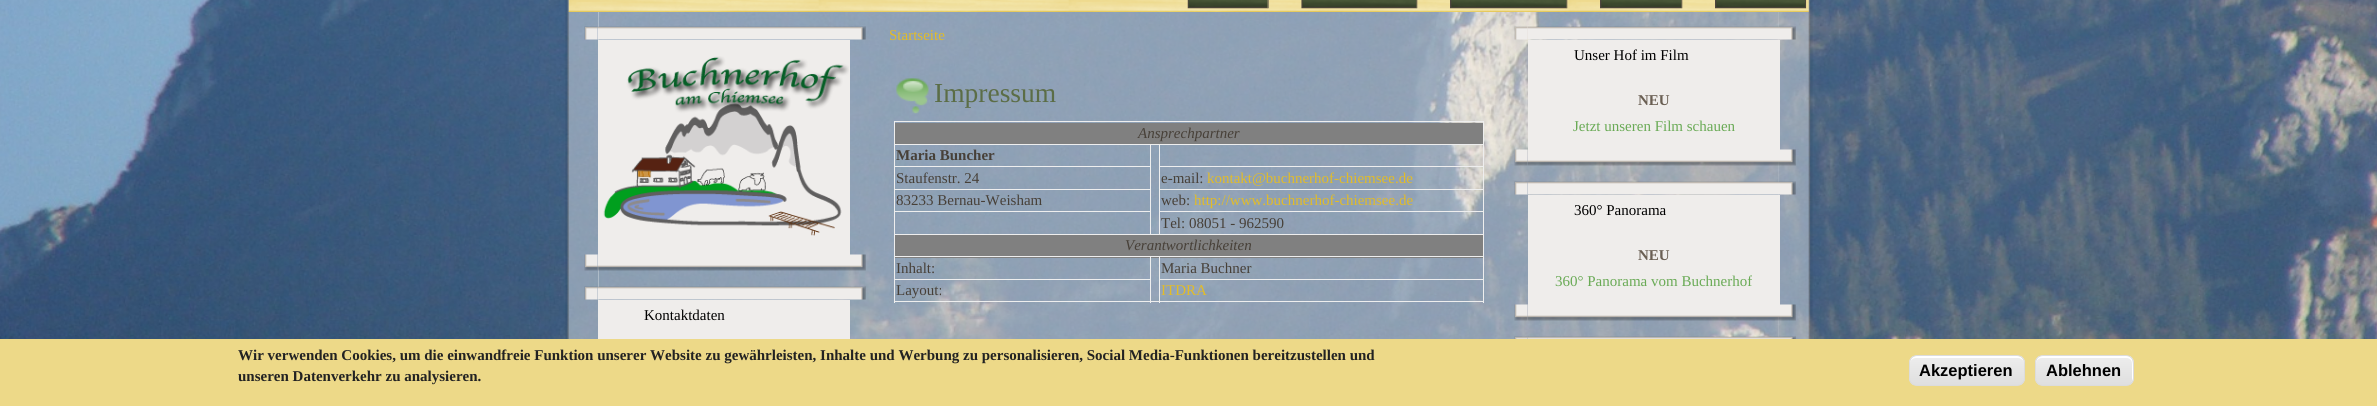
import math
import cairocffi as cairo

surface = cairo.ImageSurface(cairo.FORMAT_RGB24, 2377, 406)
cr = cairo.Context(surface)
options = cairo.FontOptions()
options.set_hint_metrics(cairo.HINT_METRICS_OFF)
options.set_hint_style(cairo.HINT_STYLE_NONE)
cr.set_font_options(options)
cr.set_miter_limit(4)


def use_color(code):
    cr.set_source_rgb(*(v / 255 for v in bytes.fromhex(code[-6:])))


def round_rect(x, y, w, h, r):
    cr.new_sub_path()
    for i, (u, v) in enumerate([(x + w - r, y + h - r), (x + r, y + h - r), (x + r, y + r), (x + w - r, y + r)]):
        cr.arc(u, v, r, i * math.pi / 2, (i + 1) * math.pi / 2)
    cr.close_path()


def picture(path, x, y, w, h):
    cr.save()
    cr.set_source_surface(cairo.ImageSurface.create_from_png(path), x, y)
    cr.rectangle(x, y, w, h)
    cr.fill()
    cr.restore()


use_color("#ffffff")
cr.paint()
picture("img1.png", 0, 0, 2377, 339)
picture("img2.png", 565, 0, 34, 339)
picture("img3.png", 1778, 0, 35, 339)
cr.set_source_rgba(1, 1, 1, 0.4)
cr.rectangle(598, 12, 1181, 327)
cr.fill()
picture("img4.png", 568, 0, 1241, 12)
picture("img5.png", 1187, 0, 81, 9)
picture("img6.png", 1267, 0, 2, 9)
picture("img7.png", 1301, 0, 116, 9)
picture("img8.png", 1416, 0, 2, 9)
picture("img9.png", 1450, 0, 117, 9)
picture("img10.png", 1566, 0, 2, 9)
picture("img11.png", 1600, 0, 82, 9)
picture("img12.png", 1681, 0, 2, 9)
picture("img13.png", 1715, 0, 90, 9)
picture("img14.png", 1805, 0, 2, 9)
cr.select_font_face("Liberation Serif")
cr.set_font_size(15)
use_color("#e2bc28")
cr.move_to(889, 40)
cr.show_text("Startseite")
picture("img15.png", 896, 78, 33, 36)
cr.set_font_size(27.5)
use_color("#5b6d46")
cr.move_to(934, 102)
cr.show_text("Impressum")
use_color("#808080")
cr.rectangle(895, 123, 588, 21)
cr.fill()
use_color("#eeeeee")
cr.rectangle(894, 121, 590, 1)
cr.fill()
cr.rectangle(1159, 144, 325, 1)
cr.fill()
cr.rectangle(1159, 166, 325, 1)
cr.fill()
cr.rectangle(1159, 189, 325, 1)
cr.fill()
cr.rectangle(1159, 211, 325, 1)
cr.fill()
cr.rectangle(894, 234, 590, 1)
cr.fill()
use_color("#808080")
cr.rectangle(895, 235, 588, 23)
cr.fill()
use_color("#eeeeee")
cr.rectangle(1159, 256, 325, 1)
cr.fill()
cr.rectangle(1159, 279, 325, 1)
cr.fill()
cr.rectangle(1483, 279, 1, 24)
cr.fill()
cr.rectangle(1483, 256, 1, 24)
cr.fill()
cr.rectangle(1483, 234, 1, 24)
cr.fill()
cr.rectangle(1483, 211, 1, 24)
cr.fill()
cr.rectangle(1483, 189, 1, 24)
cr.fill()
cr.rectangle(1483, 166, 1, 24)
cr.fill()
cr.rectangle(1483, 144, 1, 24)
cr.fill()
cr.rectangle(1483, 121, 1, 24)
cr.fill()
cr.rectangle(1159, 211, 1, 24)
cr.fill()
cr.rectangle(1159, 189, 1, 24)
cr.fill()
cr.rectangle(1159, 166, 1, 24)
cr.fill()
cr.rectangle(1159, 144, 1, 24)
cr.fill()
cr.rectangle(1150, 144, 10, 1)
cr.fill()
cr.rectangle(894, 166, 257, 1)
cr.fill()
cr.rectangle(894, 189, 257, 1)
cr.fill()
cr.rectangle(894, 211, 257, 1)
cr.fill()
cr.rectangle(1150, 144, 1, 91)
cr.fill()
cr.rectangle(894, 144, 257, 1)
cr.fill()
cr.rectangle(1159, 301, 325, 1)
cr.fill()
cr.rectangle(1159, 279, 1, 24)
cr.fill()
cr.rectangle(1159, 256, 1, 24)
cr.fill()
cr.rectangle(1150, 256, 10, 1)
cr.fill()
cr.rectangle(894, 279, 257, 1)
cr.fill()
cr.rectangle(894, 301, 266, 1)
cr.fill()
cr.rectangle(1150, 256, 1, 47)
cr.fill()
cr.rectangle(894, 256, 257, 1)
cr.fill()
cr.rectangle(894, 279, 1, 24)
cr.fill()
cr.rectangle(894, 256, 1, 24)
cr.fill()
cr.rectangle(894, 234, 1, 24)
cr.fill()
cr.rectangle(894, 211, 1, 24)
cr.fill()
cr.rectangle(894, 189, 1, 24)
cr.fill()
cr.rectangle(894, 166, 1, 24)
cr.fill()
cr.rectangle(894, 144, 1, 24)
cr.fill()
cr.rectangle(894, 121, 1, 24)
cr.fill()
cr.select_font_face("Liberation Serif", cairo.FONT_SLANT_ITALIC)
cr.set_font_size(15)
use_color("#474038")
cr.move_to(1138, 138)
cr.show_text("Ansprechpartner")
cr.select_font_face("Liberation Serif", cairo.FONT_SLANT_NORMAL, cairo.FONT_WEIGHT_BOLD)
cr.move_to(896, 160)
cr.show_text("Maria Buncher")
cr.select_font_face("Liberation Serif")
cr.move_to(896, 183)
cr.show_text("Staufenstr. 24")
cr.move_to(1161, 183)
cr.show_text("e-mail:")
use_color("#e2bc28")
cr.move_to(1207, 183)
cr.show_text("kontakt@buchnerhof-chiemsee.de")
use_color("#474038")
cr.move_to(896, 205)
cr.show_text("83233 Bernau-Weisham")
cr.move_to(1161, 205)
cr.show_text("web:")
use_color("#e2bc28")
cr.move_to(1194, 205)
cr.show_text("http://www.buchnerhof-chiemsee.de")
use_color("#474038")
cr.move_to(1161, 228)
cr.show_text("Tel: 08051 - 962590")
cr.select_font_face("Liberation Serif", cairo.FONT_SLANT_ITALIC)
cr.move_to(1125, 250)
cr.show_text("Verantwortlichkeiten")
cr.select_font_face("Liberation Serif")
cr.move_to(896, 273)
cr.show_text("Inhalt:")
cr.move_to(1161, 273)
cr.show_text("Maria Buchner")
cr.move_to(896, 295)
cr.show_text("Layout:")
use_color("#e2bc28")
cr.move_to(1161, 295)
cr.show_text("ITDRA")
picture("img16.png", 1514, 26, 14, 14)
picture("img17.png", 1527, 26, 253, 14)
picture("img18.png", 1780, 26, 16, 14)
picture("img19.png", 1514, 149, 14, 17)
picture("img20.png", 1527, 149, 253, 17)
use_color("#efedeb")
cr.rectangle(1528, 40, 252, 110)
cr.fill()
use_color("#000000")
cr.move_to(1574, 60)
cr.show_text("Unser Hof im Film")
cr.select_font_face("Liberation Serif", cairo.FONT_SLANT_NORMAL, cairo.FONT_WEIGHT_BOLD)
use_color("#6a5f53")
cr.move_to(1638, 105)
cr.show_text("NEU")
cr.select_font_face("Liberation Serif")
use_color("#69aa55")
cr.move_to(1573, 131)
cr.show_text("Jetzt unseren Film schauen")
picture("img21.png", 1780, 149, 16, 17)
picture("img22.png", 1514, 181, 14, 14)
picture("img23.png", 1527, 181, 253, 14)
picture("img24.png", 1780, 181, 16, 14)
picture("img25.png", 1514, 304, 14, 17)
picture("img26.png", 1527, 304, 253, 17)
use_color("#efedeb")
cr.rectangle(1528, 195, 252, 110)
cr.fill()
use_color("#000000")
cr.move_to(1574, 215)
cr.show_text("360° Panorama")
cr.select_font_face("Liberation Serif", cairo.FONT_SLANT_NORMAL, cairo.FONT_WEIGHT_BOLD)
use_color("#6a5f53")
cr.move_to(1638, 260)
cr.show_text("NEU")
cr.select_font_face("Liberation Serif")
use_color("#69aa55")
cr.move_to(1555, 286)
cr.show_text("360° Panorama vom Buchnerhof")
picture("img27.png", 1780, 304, 16, 17)
picture("img28.png", 1514, 336, 14, 3)
picture("img29.png", 1527, 336, 253, 3)
picture("img30.png", 1780, 336, 16, 3)
picture("img31.png", 584, 26, 14, 14)
picture("img32.png", 597, 26, 253, 14)
picture("img33.png", 850, 26, 16, 14)
picture("img35.png", 584, 254, 14, 17)
picture("img36.png", 597, 254, 253, 17)
use_color("#efedeb")
cr.rectangle(598, 40, 252, 215)
cr.fill()
picture("img34.png", 603, 56, 246, 180)
picture("img37.png", 850, 254, 16, 17)
picture("img38.png", 584, 286, 14, 14)
picture("img39.png", 597, 286, 253, 14)
picture("img40.png", 850, 286, 16, 14)
cr.rectangle(598, 300, 252, 39)
cr.fill()
use_color("#000000")
cr.move_to(644, 320)
cr.show_text("Kontaktdaten")
use_color("#edd988")
cr.rectangle(0, 339, 2377, 67)
cr.fill()
cr.select_font_face("Liberation Serif", cairo.FONT_SLANT_NORMAL, cairo.FONT_WEIGHT_BOLD)
use_color("#222222")
cr.move_to(238, 360)
cr.show_text("Wir verwenden Cookies, um die einwandfreie Funktion unserer Website zu gewährleisten, Inhalte und Werbung zu personalisieren, Social Media-Funktionen bereitzustellen und")
cr.move_to(238, 381)
cr.show_text("unseren Datenverkehr zu analysieren.")
cr.save()
round_rect(1909, 355, 116, 31, 8)
cr.clip()
gradient = cairo.LinearGradient(1967, 356, 1967, 385)
gradient.add_color_stop_rgba(0.05, 0.929, 0.929, 0.929, 1)
gradient.add_color_stop_rgba(1, 0.875, 0.875, 0.875, 1)
cr.set_source(gradient)
cr.rectangle(1909, 356, 116, 29)
cr.fill()
cr.restore()
use_color("#ffffff")
cr.new_path()
cr.move_to(1916, 358)
cr.line_to(2018, 358)
cr.curve_to(2021, 358, 2024, 360, 2024, 364)
cr.curve_to(2024, 352, 2010, 356, 2001, 356)
cr.line_to(1933, 356)
cr.curve_to(1924, 356, 1910, 352, 1910, 364)
cr.curve_to(1910, 360, 1913, 358, 1916, 358)
cr.close_path()
cr.fill()
round_rect(1909.5, 355.5, 115, 30, 7.5)
use_color("#dcdcdc")
cr.set_line_width(1)
cr.stroke()
cr.select_font_face("Liberation Sans", cairo.FONT_SLANT_NORMAL, cairo.FONT_WEIGHT_BOLD)
cr.set_font_size(16.5)
use_color("#000000")
cr.move_to(1919, 376)
cr.show_text("Akzeptieren")
cr.save()
round_rect(2035, 355, 99, 31, 8)
cr.clip()
gradient = cairo.LinearGradient(2084, 356, 2084, 385)
gradient.add_color_stop_rgba(0.05, 0.929, 0.929, 0.929, 1)
gradient.add_color_stop_rgba(1, 0.875, 0.875, 0.875, 1)
cr.set_source(gradient)
cr.rectangle(2035, 356, 99, 29)
cr.fill()
cr.restore()
use_color("#ffffff")
cr.new_path()
cr.move_to(2042, 358)
cr.line_to(2126, 358)
cr.curve_to(2130, 358, 2132, 360, 2132, 364)
cr.line_to(2132, 380)
cr.curve_to(2132, 381, 2132, 382, 2131, 383)
cr.curve_to(2134, 380, 2133, 374, 2133, 370)
cr.curve_to(2133, 353, 2132, 356, 2113, 356)
cr.line_to(2056, 356)
cr.curve_to(2047, 356, 2036, 352, 2036, 364)
cr.curve_to(2036, 360, 2039, 358, 2042, 358)
cr.close_path()
cr.fill()
round_rect(2035.5, 355.5, 98, 30, 7.5)
use_color("#dcdcdc")
cr.stroke()
use_color("#000000")
cr.move_to(2046, 376)
cr.show_text("Ablehnen")
surface.write_to_png("result.png")
